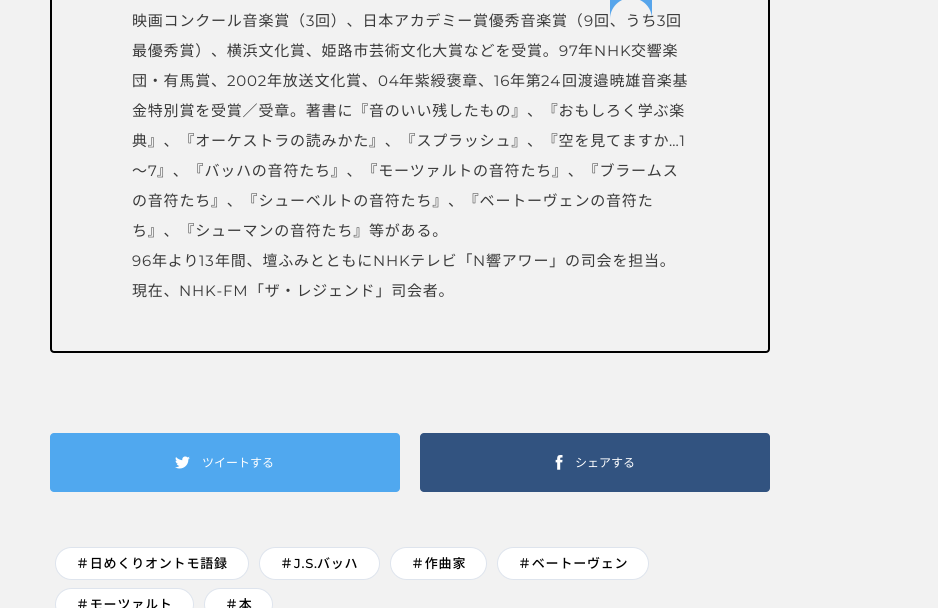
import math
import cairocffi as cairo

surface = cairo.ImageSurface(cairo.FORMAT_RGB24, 938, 608)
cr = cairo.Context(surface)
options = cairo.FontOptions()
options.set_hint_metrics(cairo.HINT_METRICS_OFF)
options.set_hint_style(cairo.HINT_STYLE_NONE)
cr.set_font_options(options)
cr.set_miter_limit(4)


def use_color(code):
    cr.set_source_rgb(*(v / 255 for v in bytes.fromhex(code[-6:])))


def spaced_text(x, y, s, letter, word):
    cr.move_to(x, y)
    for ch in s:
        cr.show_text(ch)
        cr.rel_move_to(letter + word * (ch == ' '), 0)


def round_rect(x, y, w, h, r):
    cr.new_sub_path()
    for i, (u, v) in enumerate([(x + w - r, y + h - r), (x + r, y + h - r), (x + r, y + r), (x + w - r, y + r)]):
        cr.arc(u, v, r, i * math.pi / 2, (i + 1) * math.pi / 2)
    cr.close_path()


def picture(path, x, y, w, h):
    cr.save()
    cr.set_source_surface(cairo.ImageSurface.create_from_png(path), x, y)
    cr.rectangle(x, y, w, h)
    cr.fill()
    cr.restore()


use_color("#f2f2f2")
cr.paint()
round_rect(51, -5, 718, 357, 3)
use_color("#000000")
cr.stroke()
use_color("#57a5eb")
cr.new_path()
cr.move_to(631, -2)
cr.curve_to(642.5, -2, 652, 7.5, 652, 19)
cr.line_to(652, 0)
cr.line_to(610, 0)
cr.line_to(610, 19)
cr.curve_to(610, 7.5, 619.5, -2, 631, -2)
cr.close_path()
cr.fill()
cr.select_font_face("Noto Sans JP")
cr.set_font_size(15)
use_color("#3a3a3a")
spaced_text(132, 26, "映画コンクール音楽賞（", 0.8, 0)
cr.select_font_face("Montserrat")
spaced_text(306, 26, "3", 0.8, 0)
cr.select_font_face("Noto Sans JP")
spaced_text(315, 26, "回）、日本アカデミー賞優秀音楽賞（", 0.8, 0)
cr.select_font_face("Montserrat")
spaced_text(584, 26, "9", 0.8, 0)
cr.select_font_face("Noto Sans JP")
spaced_text(594, 26, "回、うち", 0.8, 0)
cr.select_font_face("Montserrat")
spaced_text(657, 26, "3", 0.8, 0)
cr.select_font_face("Noto Sans JP")
spaced_text(666, 26, "回", 0.8, 0)
spaced_text(132, 56, "最優秀賞）、横浜文化賞、姫路市芸術文化大賞などを受賞。", 0.8, 0)
cr.select_font_face("Montserrat")
spaced_text(559, 56, "97", 0.8, 0)
cr.select_font_face("Noto Sans JP")
spaced_text(578, 56, "年", 0.8, 0)
cr.select_font_face("Montserrat")
spaced_text(594, 56, "NHK", 0.8, 0)
cr.select_font_face("Noto Sans JP")
spaced_text(631, 56, "交響楽", 0.8, 0)
spaced_text(132, 86, "団・有馬賞、", 0.8, 0)
cr.select_font_face("Montserrat")
spaced_text(227, 86, "2002", 0.8, 0)
cr.select_font_face("Noto Sans JP")
spaced_text(267, 86, "年放送文化賞、", 0.8, 0)
cr.select_font_face("Montserrat")
spaced_text(378, 86, "04", 0.8, 0)
cr.select_font_face("Noto Sans JP")
spaced_text(399, 86, "年紫綬褒章、", 0.8, 0)
cr.select_font_face("Montserrat")
spaced_text(494, 86, "16", 0.8, 0)
cr.select_font_face("Noto Sans JP")
spaced_text(510, 86, "年第", 0.8, 0)
cr.select_font_face("Montserrat")
spaced_text(541, 86, "24", 0.8, 0)
cr.select_font_face("Noto Sans JP")
spaced_text(562, 86, "回渡邉暁雄音楽基", 0.8, 0)
spaced_text(132, 116, "金特別賞を受賞／受章。著書に『音のいい残したもの』、『おもしろく学ぶ楽", 0.8, 0)
spaced_text(132, 146, "典』、『オーケストラの読みかた』、『スプラッシュ』、『空を見てますか", 0.8, 0)
cr.select_font_face("Montserrat")
spaced_text(669, 146, "…1", 0.8, 0)
cr.select_font_face("Noto Sans JP")
spaced_text(132, 176, "～", 0.8, 0)
cr.select_font_face("Montserrat")
spaced_text(148, 176, "7", 0.8, 0)
cr.select_font_face("Noto Sans JP")
spaced_text(157, 176, "』、『バッハの音符たち』、『モーツァルトの音符たち』、『ブラームス", 0.8, 0)
spaced_text(132, 206, "の音符たち』、『シューベルトの音符たち』、『ベートーヴェンの音符た", 0.8, 0)
spaced_text(132, 236, "ち』、『シューマンの音符たち』等がある。", 0.8, 0)
cr.select_font_face("Montserrat")
spaced_text(132, 266, "96", 0.8, 0)
cr.select_font_face("Noto Sans JP")
spaced_text(152, 266, "年より", 0.8, 0)
cr.select_font_face("Montserrat")
spaced_text(199, 266, "13", 0.8, 0)
cr.select_font_face("Noto Sans JP")
spaced_text(215, 266, "年間、壇ふみとともに", 0.8, 0)
cr.select_font_face("Montserrat")
spaced_text(373, 266, "NHK", 0.8, 0)
cr.select_font_face("Noto Sans JP")
spaced_text(410, 266, "テレビ「", 0.8, 0)
cr.select_font_face("Montserrat")
spaced_text(473, 266, "N", 0.8, 0)
cr.select_font_face("Noto Sans JP")
spaced_text(486, 266, "響アワー」の司会を担当。", 0.8, 0)
spaced_text(132, 296, "現在、", 0.8, 0)
cr.select_font_face("Montserrat")
spaced_text(179, 296, "NHK-FM", 0.8, 0)
cr.select_font_face("Noto Sans JP")
spaced_text(249, 296, "「ザ・レジェンド」司会者。", 0.8, 0)
use_color("#50a8ef")
round_rect(50, 433, 350, 59, 4)
cr.fill()
picture("img1.png", 175, 456, 15, 13)
cr.set_font_size(12)
use_color("#ffffff")
cr.move_to(202, 467)
cr.show_text("ツイートする")
use_color("#325380")
round_rect(420, 433, 350, 59, 4)
cr.fill()
picture("img2.png", 555, 455, 8, 15)
use_color("#ffffff")
cr.move_to(575, 467)
cr.show_text("シェアする")
round_rect(55.5, 547.5, 193, 32, 16)
cr.fill_preserve()
use_color("#dee4ed")
cr.set_line_width(1)
cr.stroke()
cr.select_font_face("Noto Sans JP Medium")
cr.set_font_size(13)
use_color("#000000")
spaced_text(76, 568, "＃日めくりオントモ語録", 0.8, 0)
use_color("#ffffff")
round_rect(259.5, 547.5, 120, 32, 16)
cr.fill_preserve()
use_color("#dee4ed")
cr.stroke()
use_color("#000000")
spaced_text(280, 568, "＃", 0.8, 0)
cr.select_font_face("Montserrat Medium")
spaced_text(294, 568, "J.S.", 0.8, 0)
cr.select_font_face("Noto Sans JP Medium")
spaced_text(317, 568, "バッハ", 0.8, 0)
use_color("#ffffff")
round_rect(390.5, 547.5, 96, 32, 16)
cr.fill_preserve()
use_color("#dee4ed")
cr.stroke()
use_color("#000000")
spaced_text(411, 568, "＃作曲家", 0.8, 0)
use_color("#ffffff")
round_rect(497.5, 547.5, 151, 32, 16)
cr.fill_preserve()
use_color("#dee4ed")
cr.stroke()
use_color("#000000")
spaced_text(518, 568, "＃ベートーヴェン", 0.8, 0)
use_color("#ffffff")
round_rect(55.5, 588.5, 138, 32, 16)
cr.fill_preserve()
use_color("#dee4ed")
cr.stroke()
use_color("#000000")
spaced_text(76, 609, "＃モーツァルト", 0.8, 0)
use_color("#ffffff")
round_rect(204.5, 588.5, 68, 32, 16)
cr.fill_preserve()
use_color("#dee4ed")
cr.stroke()
use_color("#000000")
spaced_text(225, 609, "＃本", 0.8, 0)
surface.write_to_png("result.png")
